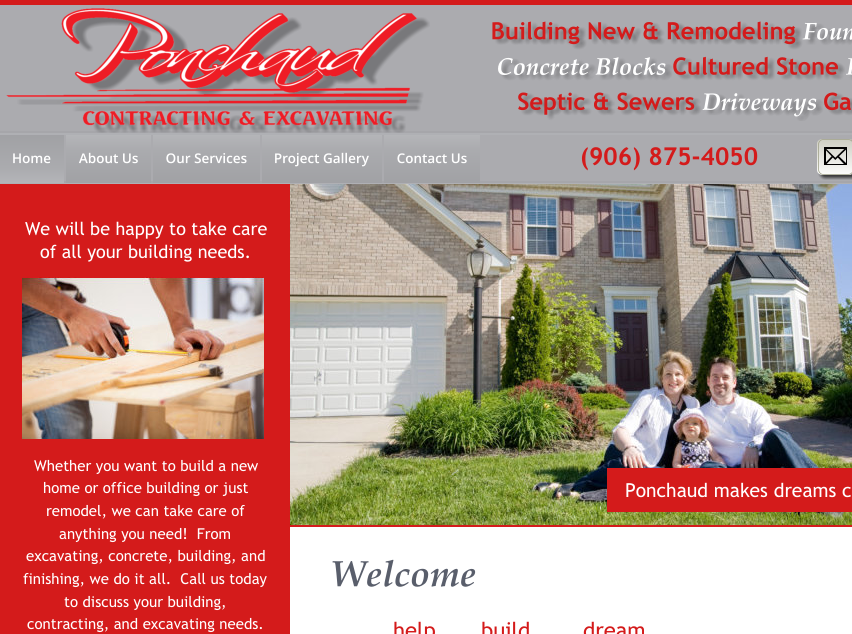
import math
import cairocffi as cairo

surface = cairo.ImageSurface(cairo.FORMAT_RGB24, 852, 634)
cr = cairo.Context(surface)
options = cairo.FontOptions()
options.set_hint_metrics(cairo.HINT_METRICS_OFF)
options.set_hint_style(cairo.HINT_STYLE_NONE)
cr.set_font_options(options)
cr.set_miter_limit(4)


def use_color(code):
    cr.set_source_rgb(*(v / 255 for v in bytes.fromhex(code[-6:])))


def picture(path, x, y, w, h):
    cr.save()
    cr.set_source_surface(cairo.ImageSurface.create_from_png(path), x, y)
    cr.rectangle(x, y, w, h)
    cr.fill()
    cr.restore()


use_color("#ffffff")
cr.paint()
use_color("#d41b1b")
cr.rectangle(0, 0, 852, 5)
cr.fill()
use_color("#ababaf")
cr.rectangle(0, 5, 852, 176)
cr.fill()
picture("img1.png", 0, 131, 852, 4)
picture("img2.png", 0, 181, 852, 3)
picture("img3.png", 0, 135, 64, 48)
picture("img4.png", 66, 135, 85, 48)
picture("img5.png", 153, 135, 107, 48)
picture("img6.png", 262, 135, 120, 48)
picture("img7.png", 384, 135, 96, 48)
picture("img8.png", 6, 8, 424, 125)
picture("img9.png", 492, 21, 360, 100)
cr.select_font_face("Trebuchet MS", cairo.FONT_SLANT_NORMAL, cairo.FONT_WEIGHT_BOLD)
cr.set_font_size(24.5)
use_color("#d41b1b")
cr.move_to(580, 165)
cr.show_text("(906) 875-4050")
picture("img10.png", 817, 139, 35, 41)
cr.rectangle(0, 184, 290, 450)
cr.fill()
picture("img11.png", 290, 184, 562, 341)
cr.select_font_face("Trebuchet MS")
cr.set_font_size(18)
use_color("#ffffff")
cr.move_to(25, 235)
cr.show_text("We will be happy to take care")
cr.move_to(40, 258)
cr.show_text("of all your building needs.")
cr.set_font_size(15)
cr.move_to(34, 471)
cr.show_text("Whether you want to build a new")
cr.move_to(43, 493)
cr.show_text("home or office building or just")
cr.move_to(46, 516)
cr.show_text("remodel, we can take care of")
cr.move_to(59, 539)
cr.show_text("anything you need!  From")
cr.move_to(26, 561)
cr.show_text("excavating, concrete, building, and")
cr.move_to(23, 584)
cr.show_text("finishing, we do it all.  Call us today")
cr.move_to(64, 607)
cr.show_text("to discuss your building,")
cr.move_to(27, 629)
cr.show_text("contracting, and excavating needs.")
picture("img12.png", 22, 277, 242, 162)
use_color("#d41b1b")
cr.rectangle(607, 468, 245, 44)
cr.fill()
cr.set_font_size(19.25)
use_color("#ffffff")
cr.move_to(625, 497)
cr.show_text("Ponchaud makes dreams c")
use_color("#d41b1b")
cr.rectangle(290, 525, 562, 2)
cr.fill()
cr.select_font_face("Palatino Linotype", cairo.FONT_SLANT_ITALIC, cairo.FONT_WEIGHT_BOLD)
cr.set_font_size(36)
use_color("#595e6b")
cr.move_to(330, 586)
cr.show_text("Welcome")
cr.select_font_face("Trebuchet MS")
cr.set_font_size(22)
use_color("#d41b1b")
cr.move_to(393, 638)
cr.show_text("help")
cr.move_to(481, 638)
cr.show_text("build")
cr.move_to(583, 638)
cr.show_text("dream")
surface.write_to_png("result.png")
